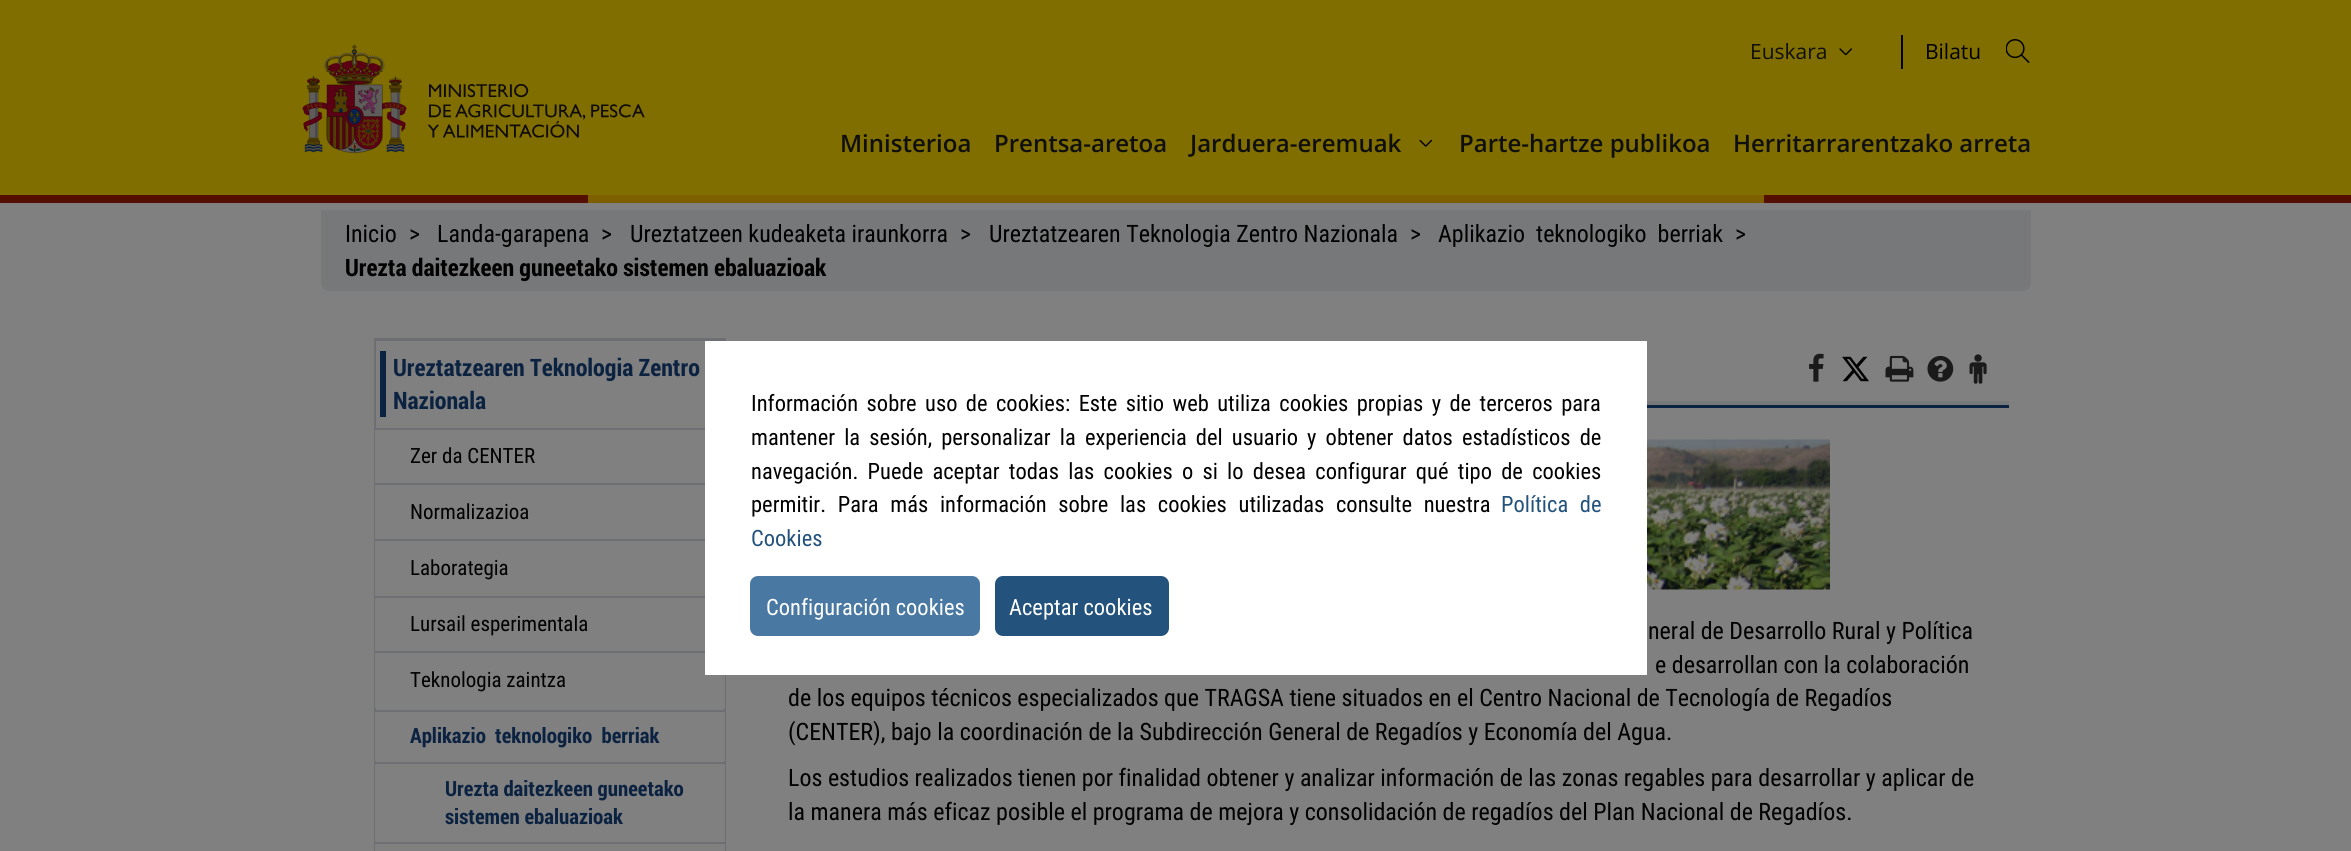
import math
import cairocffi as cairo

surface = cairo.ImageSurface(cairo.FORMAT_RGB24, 2351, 851)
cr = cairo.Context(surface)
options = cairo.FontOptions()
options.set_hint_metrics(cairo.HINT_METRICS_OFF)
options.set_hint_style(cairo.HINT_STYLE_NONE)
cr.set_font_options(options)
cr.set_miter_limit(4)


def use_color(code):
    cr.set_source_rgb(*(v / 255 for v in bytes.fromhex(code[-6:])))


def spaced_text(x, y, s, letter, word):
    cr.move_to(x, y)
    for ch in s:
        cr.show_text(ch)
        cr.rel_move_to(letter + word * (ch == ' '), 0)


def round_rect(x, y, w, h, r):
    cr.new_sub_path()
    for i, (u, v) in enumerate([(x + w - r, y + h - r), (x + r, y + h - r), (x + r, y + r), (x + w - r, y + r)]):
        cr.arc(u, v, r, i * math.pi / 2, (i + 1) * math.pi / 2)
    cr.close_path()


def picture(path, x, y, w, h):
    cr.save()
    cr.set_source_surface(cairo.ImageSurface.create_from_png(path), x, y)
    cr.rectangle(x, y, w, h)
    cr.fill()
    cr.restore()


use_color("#808080")
cr.paint()
use_color("#806e00")
cr.rectangle(0, 0, 2351, 195)
cr.fill()
picture("img1.png", 302, 44, 343, 110)
use_color("#000000")
cr.rectangle(1901, 35, 2, 34)
cr.fill()
cr.select_font_face("Open Sans")
cr.set_font_size(21)
use_color("#0f0f0e")
cr.move_to(1750, 59)
cr.show_text("Euskara")
picture("img2.png", 1839, 48, 13, 8)
use_color("#000000")
cr.move_to(1925, 59)
cr.show_text("Bilatu")
picture("img3.png", 2006, 39, 24, 24)
cr.select_font_face("Open Sans SemiBold")
cr.set_font_size(24)
use_color("#0f0f0e")
cr.move_to(840, 152)
cr.show_text("Ministerioa")
cr.move_to(994, 152)
cr.show_text("Prentsa-aretoa")
cr.move_to(1190, 152)
cr.show_text("Jarduera-eremuak")
picture("img4.png", 1419, 139, 14, 8)
cr.move_to(1459, 152)
cr.show_text("Parte-hartze publikoa")
cr.move_to(1733, 152)
cr.show_text("Herritarrarentzako arreta")
use_color("#540f02")
cr.rectangle(0, 195, 588, 8)
cr.fill()
use_color("#7e5f00")
cr.rectangle(588, 195, 1176, 8)
cr.fill()
use_color("#540f02")
cr.rectangle(1764, 195, 587, 8)
cr.fill()
use_color("#77787a")
cr.new_path()
cr.move_to(321, 210)
cr.line_to(2031, 210)
cr.line_to(2031, 283)
cr.curve_to(2031, 287.5, 2027.5, 291, 2023, 291)
cr.line_to(329, 291)
cr.curve_to(324.5, 291, 321, 287.5, 321, 283)
cr.close_path()
cr.fill()
cr.select_font_face("Roboto Condensed")
use_color("#000000")
cr.move_to(345, 242)
cr.show_text("Inicio")
cr.move_to(409, 242)
cr.show_text(">")
cr.move_to(437, 242)
cr.show_text("Landa-garapena")
cr.move_to(601, 242)
cr.show_text(">")
cr.move_to(630, 242)
cr.show_text("Ureztatzeen kudeaketa iraunkorra")
cr.move_to(960, 242)
cr.show_text(">")
cr.move_to(989, 242)
cr.show_text("Ureztatzearen Teknologia Zentro Nazionala")
cr.move_to(1410, 242)
cr.show_text(">")
cr.move_to(1438, 242)
cr.show_text("Aplikazio  teknologiko  berriak")
cr.move_to(1735, 242)
cr.show_text(">")
cr.select_font_face("Roboto Condensed", cairo.FONT_SLANT_NORMAL, cairo.FONT_WEIGHT_BOLD)
cr.move_to(345, 276)
cr.show_text("Urezta daitezkeen guneetako sistemen ebaluazioak")
cr.rectangle(375, 339, 350, 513)
use_color("#6d6f72")
cr.stroke()
cr.rectangle(375, 340, 350, 1)
cr.fill()
use_color("#0b2241")
cr.rectangle(380, 351, 6, 66)
cr.fill()
cr.move_to(393, 376)
cr.show_text("Ureztatzearen Teknologia Zentro")
cr.move_to(393, 409)
cr.show_text("Nazionala")
use_color("#808080")
cr.rectangle(375, 430, 1, 53)
cr.fill()
use_color("#6d6f72")
cr.rectangle(375, 428, 330, 2)
cr.fill()
cr.select_font_face("Roboto Condensed")
cr.set_font_size(21)
use_color("#000000")
cr.move_to(410, 463)
cr.show_text("Zer da CENTER")
use_color("#808080")
cr.rectangle(375, 485, 1, 54)
cr.fill()
use_color("#6d6f72")
cr.rectangle(375, 483, 330, 2)
cr.fill()
use_color("#000000")
cr.move_to(410, 519)
cr.show_text("Normalizazioa")
use_color("#808080")
cr.rectangle(375, 541, 1, 55)
cr.fill()
use_color("#6d6f72")
cr.rectangle(375, 539, 330, 2)
cr.fill()
use_color("#000000")
cr.move_to(410, 575)
cr.show_text("Laborategia")
use_color("#808080")
cr.rectangle(375, 598, 1, 53)
cr.fill()
use_color("#6d6f72")
cr.rectangle(375, 596, 330, 2)
cr.fill()
use_color("#000000")
cr.move_to(410, 631)
cr.show_text("Lursail esperimentala")
use_color("#808080")
cr.rectangle(375, 653, 350, 55)
cr.fill()
use_color("#6d6f72")
cr.rectangle(375, 651, 330, 2)
cr.fill()
use_color("#000000")
cr.move_to(410, 687)
cr.show_text("Teknologia zaintza")
use_color("#808080")
cr.rectangle(375, 712, 350, 49)
cr.fill()
use_color("#6d6f72")
cr.rectangle(375, 710, 350, 2)
cr.fill()
cr.select_font_face("Roboto Condensed", cairo.FONT_SLANT_NORMAL, cairo.FONT_WEIGHT_BOLD)
use_color("#0b2241")
cr.move_to(410, 743)
cr.show_text("Aplikazio  teknologiko  berriak")
use_color("#808080")
cr.rectangle(375, 764, 350, 78)
cr.fill()
use_color("#6d6f72")
cr.rectangle(375, 762, 350, 2)
cr.fill()
use_color("#0b2241")
cr.move_to(445, 796)
cr.show_text("Urezta daitezkeen guneetako")
cr.move_to(445, 824)
cr.show_text("sistemen ebaluazioak")
use_color("#808080")
cr.rectangle(375, 844, 350, 7)
cr.fill()
use_color("#6d6f72")
cr.rectangle(375, 842, 350, 2)
cr.fill()
picture("img5.png", 1809, 353, 15, 29)
picture("img6.png", 1842, 356, 27, 26)
picture("img7.png", 1885, 355, 29, 27)
picture("img8.png", 1927, 355, 27, 27)
picture("img9.png", 1969, 354, 18, 30)
use_color("#77787a")
cr.rectangle(1647, 401, 362, 4)
cr.fill()
use_color("#0b2241")
cr.rectangle(1647, 405, 362, 3)
cr.fill()
picture("img10.png", 1647, 439, 183, 151)
cr.select_font_face("Roboto Condensed")
cr.set_font_size(24)
use_color("#000000")
cr.move_to(1648, 639)
cr.show_text("neral de Desarrollo Rural y Política")
cr.move_to(1655, 673)
cr.show_text("e desarrollan con la colaboración")
cr.move_to(788, 706)
cr.show_text("de los equipos técnicos especializados que TRAGSA tiene situados en el Centro Nacional de Tecnología de Regadíos")
cr.move_to(788, 740)
cr.show_text("(CENTER), bajo la coordinación de la Subdirección General de Regadíos y Economía del Agua.")
cr.move_to(788, 786)
cr.show_text("Los estudios realizados tienen por finalidad obtener y analizar información de las zonas regables para desarrollar y aplicar de")
cr.move_to(788, 820)
cr.show_text("la manera más eficaz posible el programa de mejora y consolidación de regadíos del Plan Nacional de Regadíos.")
use_color("#ffffff")
cr.rectangle(705, 341, 942, 334)
cr.fill()
cr.set_font_size(22.5)
use_color("#000000")
spaced_text(751, 411, "Información sobre uso de cookies: Este sitio web utiliza cookies propias y de terceros para", 0, 3.25)
spaced_text(751, 445, "mantener la sesión, personalizar la experiencia del usuario y obtener datos estadísticos de", 0, 4)
spaced_text(751, 479, "navegación. Puede aceptar todas las cookies o si lo desea configurar qué tipo de cookies", 0, 4.1)
spaced_text(751, 512, "permitir. Para más información sobre las cookies utilizadas consulte nuestra", 0, 6.5)
use_color("#23527c")
spaced_text(1501, 512, "Política de", 0, 6.5)
cr.move_to(751, 546)
cr.show_text("Cookies")
use_color("#4978a2")
round_rect(750, 576, 230, 60, 8)
cr.fill()
use_color("#ffffff")
cr.move_to(766, 615)
cr.show_text("Configuración cookies")
use_color("#23527c")
round_rect(995, 576, 174, 60, 8)
cr.fill()
use_color("#ffffff")
cr.move_to(1009, 615)
cr.show_text("Aceptar cookies")
surface.write_to_png("result.png")
